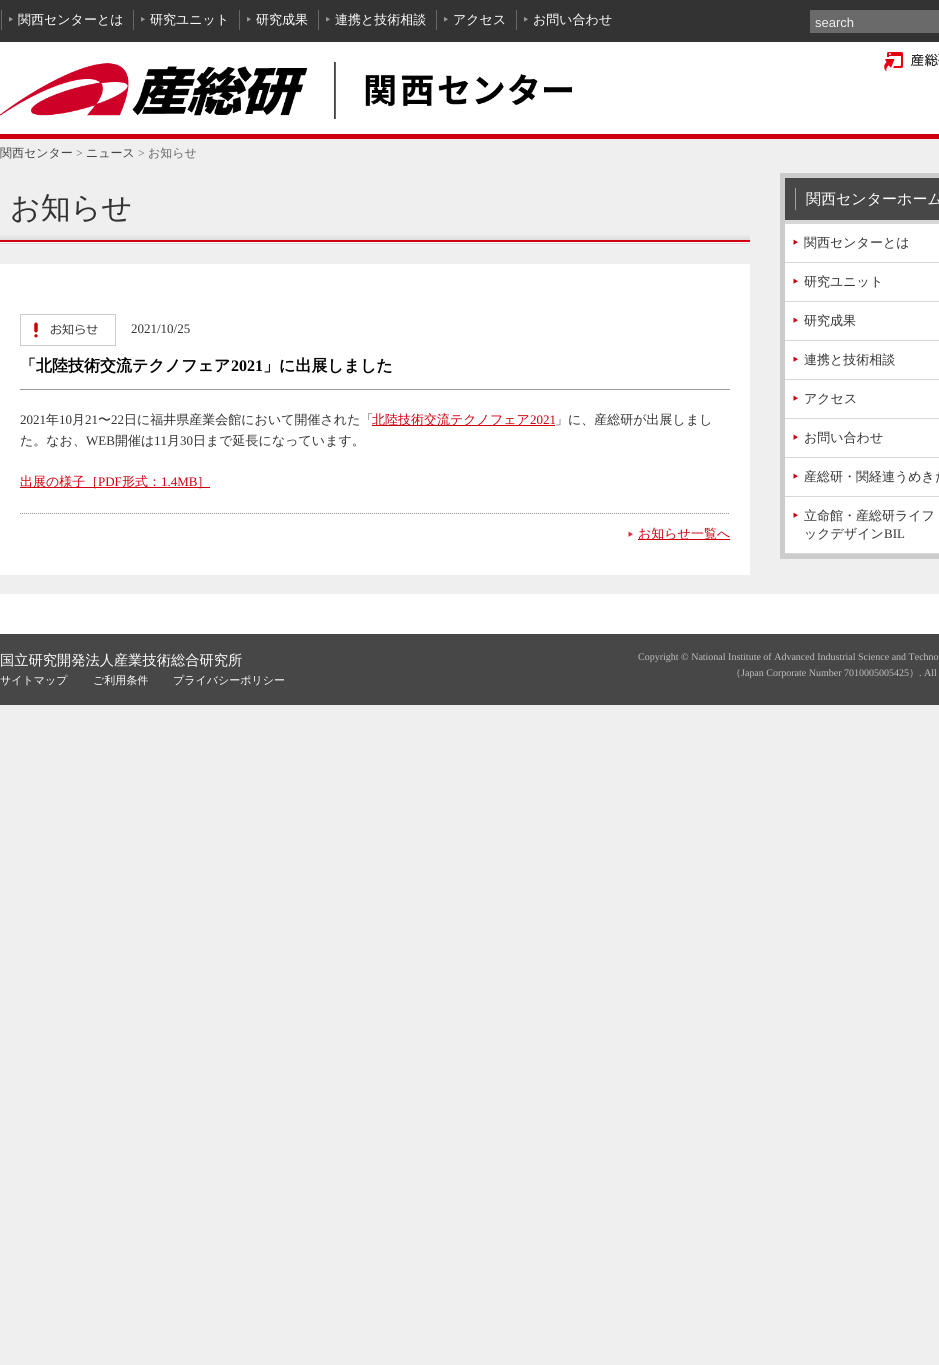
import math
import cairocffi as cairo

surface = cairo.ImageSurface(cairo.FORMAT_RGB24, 939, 1365)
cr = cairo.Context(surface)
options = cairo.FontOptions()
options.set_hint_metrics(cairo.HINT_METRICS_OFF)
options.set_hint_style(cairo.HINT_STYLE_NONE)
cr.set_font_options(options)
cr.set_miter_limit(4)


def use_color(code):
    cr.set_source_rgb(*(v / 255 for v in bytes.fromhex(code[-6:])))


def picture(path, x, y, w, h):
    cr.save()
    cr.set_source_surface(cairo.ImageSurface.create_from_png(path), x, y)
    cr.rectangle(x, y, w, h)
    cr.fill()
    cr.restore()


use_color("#efeff0")
cr.paint()
use_color("#333333")
cr.rectangle(0, 0, 939, 42)
cr.fill()
use_color("#666666")
cr.rectangle(1, 10, 1, 20)
cr.fill()
picture("img1.png", 9, 17, 4, 5)
cr.select_font_face("WenQuanYi Zen Hei Medium")
cr.set_font_size(13)
use_color("#ffffff")
cr.move_to(18, 24)
cr.show_text("関西センターとは")
use_color("#666666")
cr.rectangle(133, 10, 1, 20)
cr.fill()
picture("img1.png", 141, 17, 4, 5)
use_color("#ffffff")
cr.move_to(150, 24)
cr.show_text("研究ユニット")
use_color("#666666")
cr.rectangle(239, 10, 1, 20)
cr.fill()
picture("img1.png", 247, 17, 4, 5)
use_color("#ffffff")
cr.move_to(256, 24)
cr.show_text("研究成果")
use_color("#666666")
cr.rectangle(318, 10, 1, 20)
cr.fill()
picture("img1.png", 326, 17, 4, 5)
use_color("#ffffff")
cr.move_to(335, 24)
cr.show_text("連携と技術相談")
use_color("#666666")
cr.rectangle(436, 10, 1, 20)
cr.fill()
picture("img1.png", 444, 17, 4, 5)
use_color("#ffffff")
cr.move_to(453, 24)
cr.show_text("アクセス")
use_color("#666666")
cr.rectangle(516, 10, 1, 20)
cr.fill()
picture("img1.png", 524, 17, 4, 5)
use_color("#ffffff")
cr.move_to(533, 24)
cr.show_text("お問い合わせ")
use_color("#6a6a6a")
cr.rectangle(810, 10, 129, 23)
cr.fill()
cr.select_font_face("Liberation Sans")
use_color("#eeeeee")
cr.move_to(815, 27)
cr.show_text("search")
use_color("#ffffff")
cr.rectangle(0, 42, 939, 92)
cr.fill()
use_color("#cf0010")
cr.rectangle(0, 134, 939, 5)
cr.fill()
picture("img2.png", 0, 62, 572, 57)
picture("img3.png", 884, 52, 55, 20)
cr.select_font_face("WenQuanYi Zen Hei Medium")
cr.set_font_size(12)
use_color("#444444")
cr.move_to(0, 157)
cr.show_text("関西センター")
cr.select_font_face("Liberation Serif")
use_color("#666666")
cr.move_to(76, 157)
cr.show_text(">")
cr.select_font_face("WenQuanYi Zen Hei Medium")
use_color("#444444")
cr.move_to(86, 157)
cr.show_text("ニュース")
cr.select_font_face("Liberation Serif")
use_color("#666666")
cr.move_to(138, 157)
cr.show_text(">")
cr.select_font_face("WenQuanYi Zen Hei Medium")
cr.move_to(148, 157)
cr.show_text("お知らせ")
picture("img4.png", 0, 235, 750, 9)
cr.set_font_size(30)
use_color("#333333")
cr.move_to(10, 218)
cr.show_text("お知らせ")
use_color("#ffffff")
cr.rectangle(0, 264, 750, 311)
cr.fill()
picture("img5.png", 20, 314, 96, 32)
cr.select_font_face("Liberation Serif")
cr.set_font_size(13)
use_color("#333333")
cr.move_to(131, 333)
cr.show_text("2021/10/25")
use_color("#999999")
cr.rectangle(20, 389, 710, 1)
cr.fill()
cr.select_font_face("WenQuanYi Zen Hei", cairo.FONT_SLANT_NORMAL, cairo.FONT_WEIGHT_BOLD)
cr.set_font_size(16)
use_color("#000000")
cr.move_to(20, 371)
cr.show_text("「北陸技術交流テクノフェア")
cr.select_font_face("Liberation Serif", cairo.FONT_SLANT_NORMAL, cairo.FONT_WEIGHT_BOLD)
cr.move_to(231, 371)
cr.show_text("2021")
cr.select_font_face("WenQuanYi Zen Hei", cairo.FONT_SLANT_NORMAL, cairo.FONT_WEIGHT_BOLD)
cr.move_to(263, 371)
cr.show_text("」に出展しました")
cr.select_font_face("Liberation Serif")
cr.set_font_size(13)
use_color("#333333")
cr.move_to(20, 424)
cr.show_text("2021")
cr.select_font_face("WenQuanYi Zen Hei Medium")
cr.move_to(46, 424)
cr.show_text("年")
cr.select_font_face("Liberation Serif")
cr.move_to(59, 424)
cr.show_text("10")
cr.select_font_face("WenQuanYi Zen Hei Medium")
cr.move_to(72, 424)
cr.show_text("月")
cr.select_font_face("Liberation Serif")
cr.move_to(85, 424)
cr.show_text("21")
cr.select_font_face("WenQuanYi Zen Hei Medium")
cr.move_to(98, 424)
cr.show_text("〜")
cr.select_font_face("Liberation Serif")
cr.move_to(111, 424)
cr.show_text("22")
cr.select_font_face("WenQuanYi Zen Hei Medium")
cr.move_to(124, 424)
cr.show_text("日に福井県産業会館において開催された「")
use_color("#cf0010")
cr.rectangle(372, 425, 183, 1)
cr.fill()
cr.move_to(372, 424)
cr.show_text("北陸技術交流テクノフェア")
cr.select_font_face("Liberation Serif")
cr.move_to(530, 424)
cr.show_text("2021")
cr.select_font_face("WenQuanYi Zen Hei Medium")
use_color("#333333")
cr.move_to(555, 424)
cr.show_text("」に、産総研が出展しまし")
cr.move_to(20, 445)
cr.show_text("た。なお、")
cr.select_font_face("Liberation Serif")
cr.move_to(86, 445)
cr.show_text("WEB")
cr.select_font_face("WenQuanYi Zen Hei Medium")
cr.move_to(115, 445)
cr.show_text("開催は")
cr.select_font_face("Liberation Serif")
cr.move_to(154, 445)
cr.show_text("11")
cr.select_font_face("WenQuanYi Zen Hei Medium")
cr.move_to(167, 445)
cr.show_text("月")
cr.select_font_face("Liberation Serif")
cr.move_to(180, 445)
cr.show_text("30")
cr.select_font_face("WenQuanYi Zen Hei Medium")
cr.move_to(193, 445)
cr.show_text("日まで延長になっています。")
use_color("#cf0010")
cr.rectangle(20, 487, 190, 1)
cr.fill()
cr.move_to(20, 486)
cr.show_text("出展の様子［")
cr.select_font_face("Liberation Serif")
cr.move_to(98, 486)
cr.show_text("PDF")
cr.select_font_face("WenQuanYi Zen Hei Medium")
cr.move_to(122, 486)
cr.show_text("形式：")
cr.select_font_face("Liberation Serif")
cr.move_to(161, 486)
cr.show_text("1.4MB")
cr.select_font_face("WenQuanYi Zen Hei Medium")
cr.move_to(197, 486)
cr.show_text("］")
cr.new_path()
cr.move_to(20, 513.5)
cr.line_to(730, 513.5)
use_color("#999999")
cr.set_line_width(1)
cr.set_dash([1, 1])
cr.stroke()
picture("img6.png", 628, 531, 5, 6)
use_color("#cf0010")
cr.rectangle(638, 539, 92, 1)
cr.fill()
cr.move_to(638, 538)
cr.show_text("お知らせ一覧へ")
use_color("#474747")
cr.rectangle(785, 178, 154, 42)
cr.fill()
cr.rectangle(782.5, 175.5, 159, 381)
use_color("#cccccc")
cr.set_line_width(5)
cr.set_dash([])
cr.stroke()
use_color("#a3a3a3")
cr.rectangle(795, 188, 1, 22)
cr.fill()
cr.set_font_size(15)
use_color("#ffffff")
cr.move_to(806, 204)
cr.show_text("関西センターホーム")
use_color("#d7d7d7")
cr.rectangle(785, 220, 154, 4)
cr.fill()
use_color("#ffffff")
cr.rectangle(785, 224, 154, 38)
cr.fill()
picture("img7.png", 793, 239, 5, 6)
use_color("#d7d7d7")
cr.rectangle(785, 262, 154, 1)
cr.fill()
cr.set_font_size(13)
use_color("#333333")
cr.move_to(804, 247)
cr.show_text("関西センターとは")
use_color("#ffffff")
cr.rectangle(785, 263, 154, 38)
cr.fill()
picture("img7.png", 793, 278, 5, 6)
use_color("#d7d7d7")
cr.rectangle(785, 301, 154, 1)
cr.fill()
use_color("#333333")
cr.move_to(804, 286)
cr.show_text("研究ユニット")
use_color("#ffffff")
cr.rectangle(785, 302, 154, 38)
cr.fill()
picture("img7.png", 793, 317, 5, 6)
use_color("#d7d7d7")
cr.rectangle(785, 340, 154, 1)
cr.fill()
use_color("#333333")
cr.move_to(804, 325)
cr.show_text("研究成果")
use_color("#ffffff")
cr.rectangle(785, 341, 154, 38)
cr.fill()
picture("img7.png", 793, 356, 5, 6)
use_color("#d7d7d7")
cr.rectangle(785, 379, 154, 1)
cr.fill()
use_color("#333333")
cr.move_to(804, 364)
cr.show_text("連携と技術相談")
use_color("#ffffff")
cr.rectangle(785, 380, 154, 38)
cr.fill()
picture("img7.png", 793, 395, 5, 6)
use_color("#d7d7d7")
cr.rectangle(785, 418, 154, 1)
cr.fill()
use_color("#333333")
cr.move_to(804, 403)
cr.show_text("アクセス")
use_color("#ffffff")
cr.rectangle(785, 419, 154, 38)
cr.fill()
picture("img7.png", 793, 434, 5, 6)
use_color("#d7d7d7")
cr.rectangle(785, 457, 154, 1)
cr.fill()
use_color("#333333")
cr.move_to(804, 442)
cr.show_text("お問い合わせ")
use_color("#ffffff")
cr.rectangle(785, 458, 154, 38)
cr.fill()
picture("img7.png", 793, 473, 5, 6)
use_color("#d7d7d7")
cr.rectangle(785, 496, 154, 1)
cr.fill()
use_color("#333333")
cr.move_to(804, 481)
cr.show_text("産総研・関経連うめきた")
use_color("#ffffff")
cr.rectangle(785, 497, 154, 56)
cr.fill()
picture("img7.png", 793, 512, 5, 6)
use_color("#d7d7d7")
cr.rectangle(785, 553, 154, 1)
cr.fill()
use_color("#333333")
cr.move_to(804, 520)
cr.show_text("立命館・産総研ライフ")
cr.move_to(804, 538)
cr.show_text("ックデザイン")
cr.select_font_face("Liberation Serif")
cr.move_to(884, 538)
cr.show_text("BIL")
use_color("#ffffff")
cr.rectangle(0, 594, 939, 40)
cr.fill()
use_color("#474747")
cr.rectangle(0, 634, 939, 71)
cr.fill()
cr.select_font_face("WenQuanYi Zen Hei Medium")
cr.set_font_size(14.25)
use_color("#ffffff")
cr.move_to(0, 665)
cr.show_text("国立研究開発法人産業技術総合研究所")
cr.set_font_size(11)
cr.move_to(0, 684)
cr.show_text("サイトマップ")
cr.move_to(93, 684)
cr.show_text("ご利用条件")
cr.move_to(173, 684)
cr.show_text("プライバシーポリシー")
cr.select_font_face("Liberation Serif")
cr.set_font_size(10)
use_color("#c0c0c0")
cr.move_to(638, 660)
cr.show_text("Copyright © National Institute of Advanced Industrial Science and Techno")
cr.select_font_face("WenQuanYi Zen Hei Medium")
cr.move_to(731, 676)
cr.show_text("（")
cr.select_font_face("Liberation Serif")
cr.move_to(741, 676)
cr.show_text("Japan Corporate Number 7010005005425")
cr.select_font_face("WenQuanYi Zen Hei Medium")
cr.move_to(909, 676)
cr.show_text("）")
cr.select_font_face("Liberation Serif")
cr.move_to(919, 676)
cr.show_text(". All")
surface.write_to_png("result.png")
